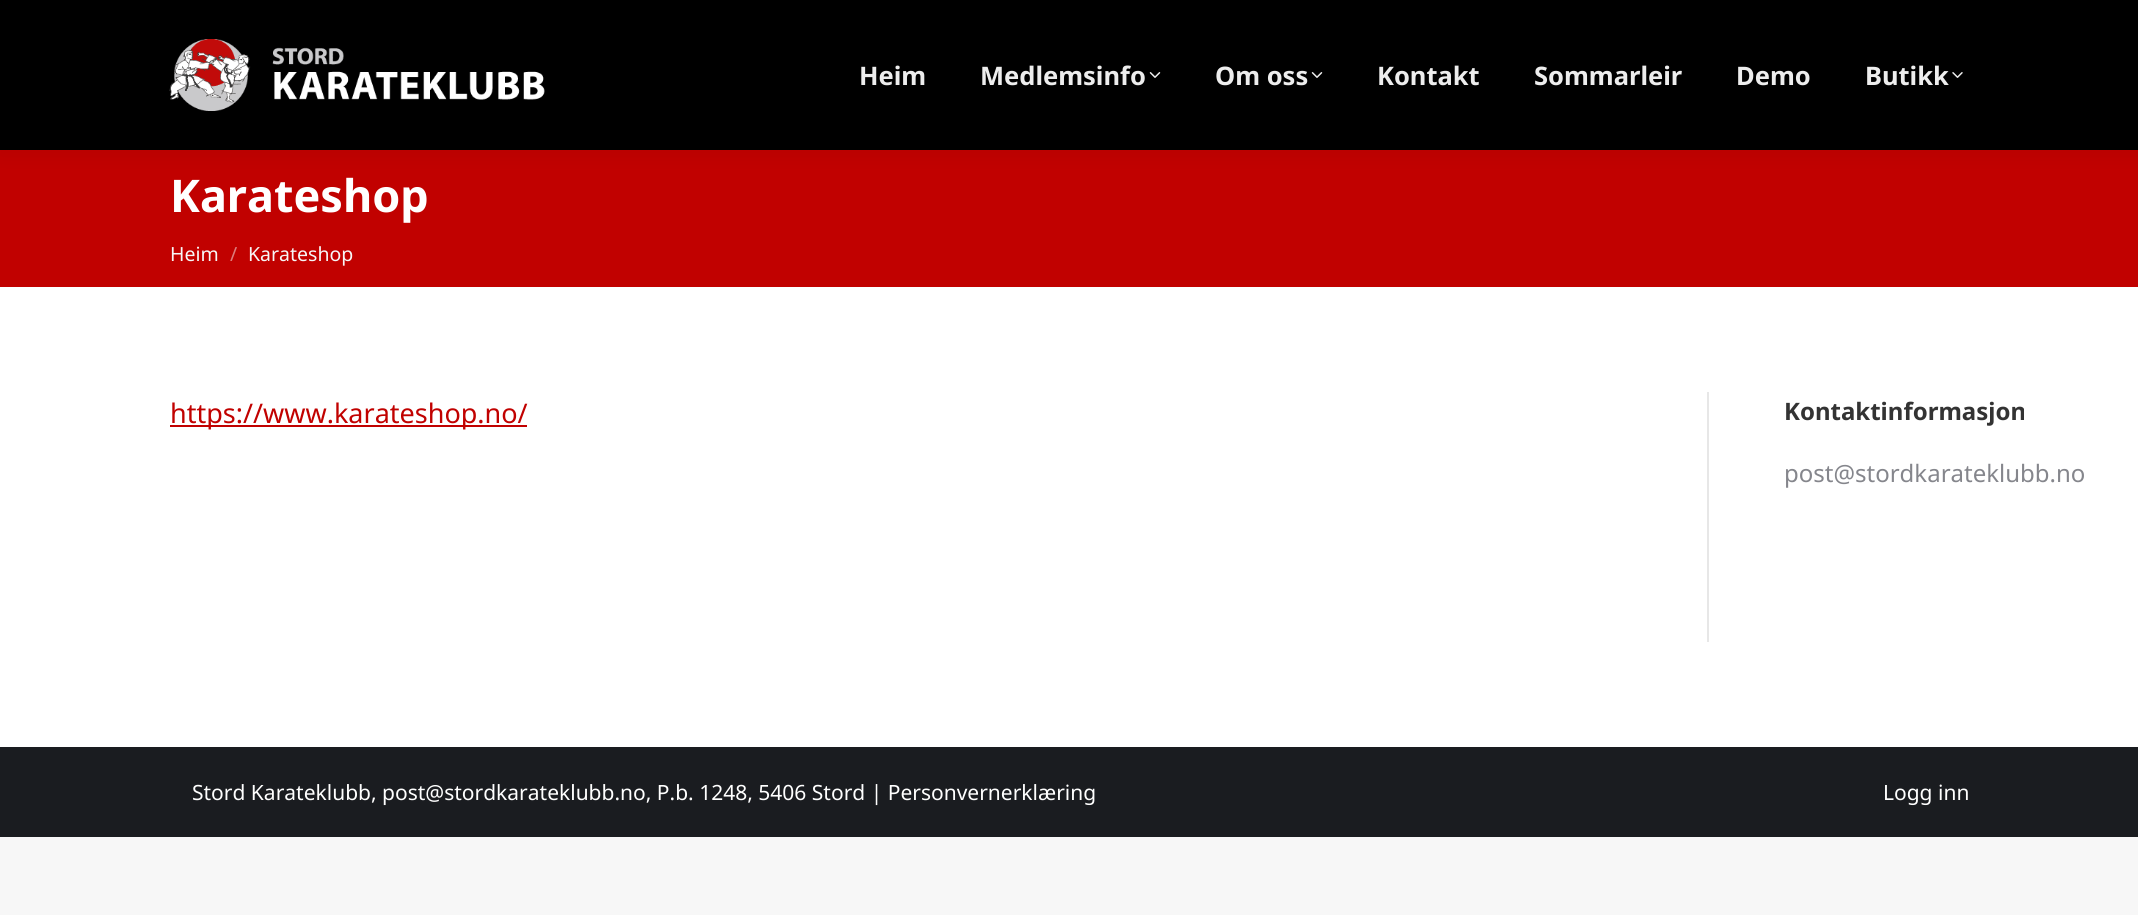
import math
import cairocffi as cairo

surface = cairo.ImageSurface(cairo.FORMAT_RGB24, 2138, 915)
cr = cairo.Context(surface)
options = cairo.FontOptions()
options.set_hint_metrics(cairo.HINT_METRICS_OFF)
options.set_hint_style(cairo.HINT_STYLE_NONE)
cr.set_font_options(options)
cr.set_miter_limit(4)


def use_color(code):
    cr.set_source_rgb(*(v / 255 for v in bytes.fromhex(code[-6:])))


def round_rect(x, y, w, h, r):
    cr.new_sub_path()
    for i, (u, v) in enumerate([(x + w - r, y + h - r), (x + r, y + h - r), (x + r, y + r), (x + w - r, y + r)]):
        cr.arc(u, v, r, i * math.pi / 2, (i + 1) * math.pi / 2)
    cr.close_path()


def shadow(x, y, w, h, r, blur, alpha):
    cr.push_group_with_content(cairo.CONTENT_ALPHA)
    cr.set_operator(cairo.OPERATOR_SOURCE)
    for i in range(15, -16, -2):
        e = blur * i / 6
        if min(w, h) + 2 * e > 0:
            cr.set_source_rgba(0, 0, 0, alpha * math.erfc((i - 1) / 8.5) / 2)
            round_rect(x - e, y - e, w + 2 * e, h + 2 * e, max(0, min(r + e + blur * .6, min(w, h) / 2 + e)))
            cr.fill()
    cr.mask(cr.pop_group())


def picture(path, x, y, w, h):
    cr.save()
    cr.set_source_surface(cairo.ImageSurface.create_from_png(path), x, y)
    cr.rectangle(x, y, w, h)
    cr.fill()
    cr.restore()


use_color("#f7f7f7")
cr.paint()
use_color("#ffffff")
cr.rectangle(0, 287, 2138, 460)
cr.fill()
use_color("#c10100")
cr.rectangle(0, 150, 2138, 137)
cr.fill()
use_color("#000000")
shadow(-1, -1, 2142, 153, 0, 11, 0.07)
use_color("#000000")
cr.rectangle(0, 0, 2138, 150)
cr.fill()
picture("img1.png", 169, 39, 376, 72)
cr.select_font_face("Noto Sans", cairo.FONT_SLANT_NORMAL, cairo.FONT_WEIGHT_BOLD)
cr.set_font_size(25.5)
use_color("#ededed")
cr.move_to(859, 85)
cr.show_text("Heim")
cr.move_to(980, 85)
cr.show_text("Medlemsinfo")
picture("img2.png", 1149, 72, 12, 6)
cr.move_to(1215, 85)
cr.show_text("Om oss")
picture("img2.png", 1311, 72, 12, 6)
cr.move_to(1377, 85)
cr.show_text("Kontakt")
cr.move_to(1534, 85)
cr.show_text("Sommarleir")
cr.move_to(1736, 85)
cr.show_text("Demo")
cr.move_to(1865, 85)
cr.show_text("Butikk")
picture("img3.png", 1952, 72, 11, 6)
cr.set_font_size(45)
use_color("#ffffff")
cr.move_to(170, 212)
cr.show_text("Karateshop")
cr.select_font_face("Noto Sans")
cr.set_font_size(19.5)
use_color("#f7f7f7")
cr.move_to(170, 261)
cr.show_text("Heim")
use_color("#dc7c7c")
cr.move_to(230, 261)
cr.show_text("/")
use_color("#f7f7f7")
cr.move_to(248, 261)
cr.show_text("Karateshop")
use_color("#c10100")
cr.rectangle(170, 425, 357, 2)
cr.fill()
cr.set_font_size(27)
cr.move_to(170, 423)
cr.show_text("https://www.karateshop.no/")
use_color("#e7e7e7")
cr.rectangle(1707, 392, 2, 250)
cr.fill()
cr.select_font_face("Noto Sans", cairo.FONT_SLANT_NORMAL, cairo.FONT_WEIGHT_BOLD)
cr.set_font_size(24)
use_color("#333333")
cr.move_to(1784, 420)
cr.show_text("Kontaktinformasjon")
cr.select_font_face("Noto Sans")
use_color("#85868c")
cr.move_to(1784, 482)
cr.show_text("post@stordkarateklubb.no")
use_color("#1a1c20")
cr.rectangle(0, 747, 2138, 90)
cr.fill()
cr.set_font_size(21)
use_color("#ffffff")
cr.move_to(192, 800)
cr.show_text("Stord Karateklubb, post@stordkarateklubb.no, P.b. 1248, 5406 Stord | Personvernerklæring")
cr.move_to(1883, 800)
cr.show_text("Logg inn")
surface.write_to_png("result.png")
